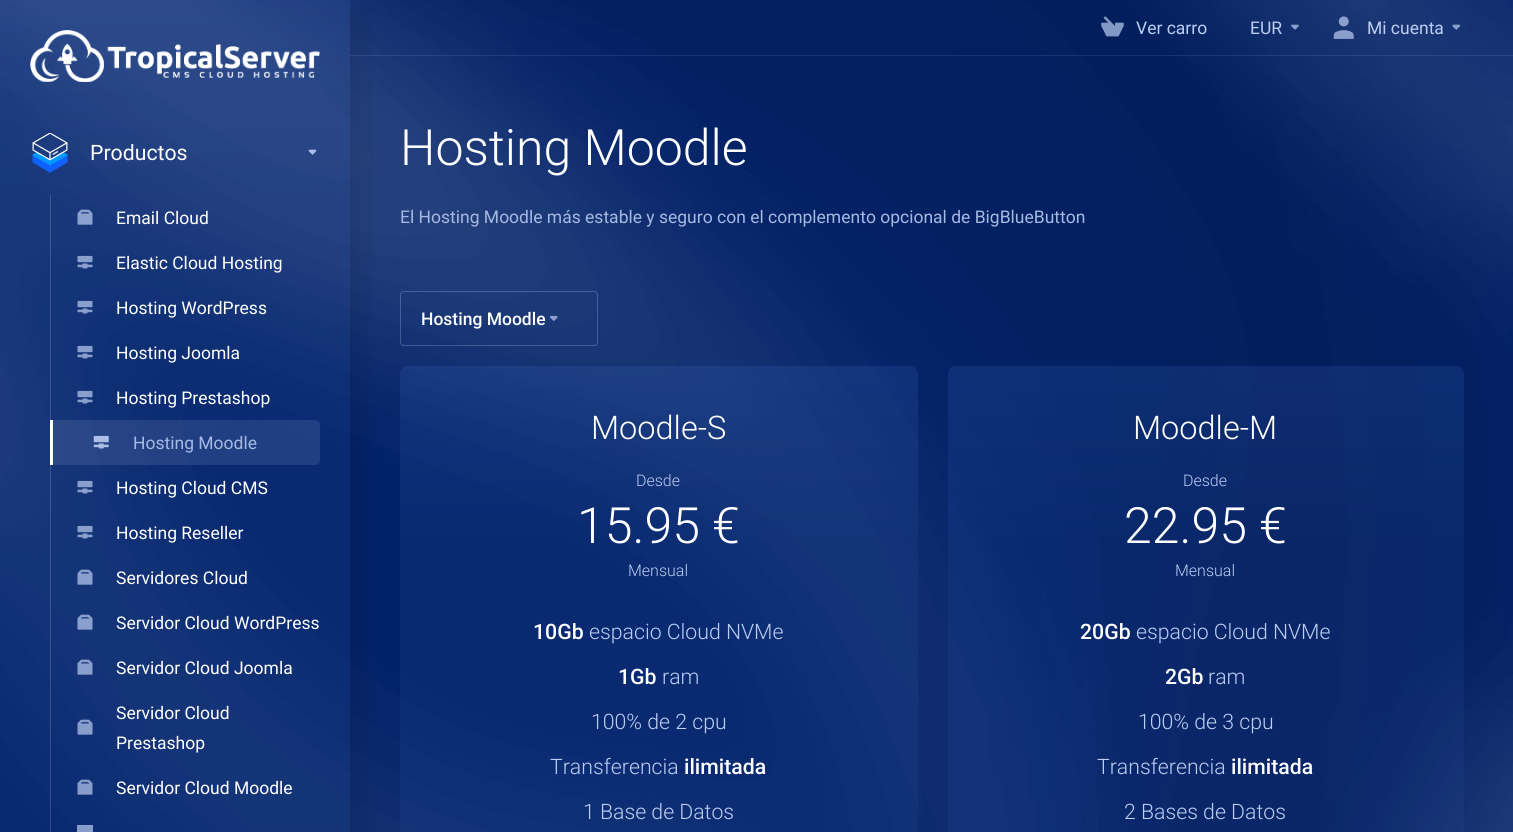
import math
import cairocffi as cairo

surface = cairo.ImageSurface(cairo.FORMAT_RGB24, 1513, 832)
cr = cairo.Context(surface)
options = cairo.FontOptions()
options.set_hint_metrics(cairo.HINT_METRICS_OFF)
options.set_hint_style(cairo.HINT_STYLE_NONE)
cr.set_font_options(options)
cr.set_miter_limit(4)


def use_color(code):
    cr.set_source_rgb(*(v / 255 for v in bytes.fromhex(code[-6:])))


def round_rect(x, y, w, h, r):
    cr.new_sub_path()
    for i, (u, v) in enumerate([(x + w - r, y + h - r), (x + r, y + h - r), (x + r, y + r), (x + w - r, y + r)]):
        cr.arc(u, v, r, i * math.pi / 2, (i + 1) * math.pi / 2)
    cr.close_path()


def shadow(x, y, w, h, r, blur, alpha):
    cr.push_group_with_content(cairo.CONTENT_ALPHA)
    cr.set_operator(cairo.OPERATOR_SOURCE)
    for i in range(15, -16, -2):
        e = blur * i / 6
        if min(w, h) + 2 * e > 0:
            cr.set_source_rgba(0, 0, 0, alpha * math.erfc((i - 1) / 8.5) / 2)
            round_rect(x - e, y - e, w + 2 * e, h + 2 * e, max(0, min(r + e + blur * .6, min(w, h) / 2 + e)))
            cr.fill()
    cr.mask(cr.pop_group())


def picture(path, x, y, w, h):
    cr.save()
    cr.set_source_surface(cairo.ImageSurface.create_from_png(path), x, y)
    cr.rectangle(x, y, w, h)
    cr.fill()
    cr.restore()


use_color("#022268")
cr.paint()
picture("img1.png", 0, 0, 1513, 832)
cr.set_source_rgba(0.698, 0.8, 1, 0.12)
cr.rectangle(350, 55, 1163, 1)
cr.fill()
round_rect(400.5, 291.5, 197, 54, 3.5)
cr.set_source_rgba(0.8, 0.867, 1, 0.24)
cr.set_line_width(1)
cr.stroke()
gradient = cairo.LinearGradient(659, 366, 659, 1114)
gradient.add_color_stop_rgba(0, 0.294, 0.471, 0.824, 0.16)
gradient.add_color_stop_rgba(0.24, 0.161, 0.322, 0.639, 0.16)
gradient.add_color_stop_rgba(1, 0.161, 0.322, 0.639, 0.16)
cr.set_source(gradient)
round_rect(400, 366, 518, 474, 8)
cr.fill()
cr.save()
cr.rectangle(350, 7, 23, 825)
cr.clip()
use_color("#000000")
shadow(0, 20, 350, 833, 0, 20, 0.16)
cr.restore()
gradient = cairo.LinearGradient(175, 0, 175, 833)
gradient.add_color_stop_rgba(0, 0.294, 0.471, 0.824, 0.16)
gradient.add_color_stop_rgba(0.24, 0.161, 0.322, 0.639, 0.16)
gradient.add_color_stop_rgba(1, 0.161, 0.322, 0.639, 0.16)
cr.set_source(gradient)
cr.rectangle(0, 0, 350, 832)
cr.fill()
picture("img2.png", 30, 30, 290, 52)
picture("img3.png", 32, 133, 36, 40)
cr.select_font_face("Roboto")
cr.set_font_size(21.25)
use_color("#ffffff")
cr.move_to(90, 160)
cr.show_text("Productos")
picture("img4.png", 308, 149, 9, 6)
use_color("#3d578f")
cr.rectangle(50, 195, 1, 45)
cr.fill()
picture("img5.png", 77, 209, 16, 16)
cr.set_font_size(17.5)
use_color("#ffffff")
cr.move_to(116, 224)
cr.show_text("Email Cloud")
cr.set_source_rgba(1, 1, 1, 0.16)
cr.rectangle(50, 240, 1, 45)
cr.fill()
picture("img6.png", 77, 255, 16, 14)
use_color("#ffffff")
cr.move_to(116, 269)
cr.show_text("Elastic Cloud Hosting")
use_color("#3a548e")
cr.rectangle(50, 285, 1, 90)
cr.fill()
picture("img7.png", 77, 300, 16, 14)
use_color("#ffffff")
cr.move_to(116, 314)
cr.show_text("Hosting WordPress")
picture("img8.png", 77, 345, 16, 14)
cr.move_to(116, 359)
cr.show_text("Hosting Joomla")
use_color("#3b558e")
cr.rectangle(50, 375, 1, 45)
cr.fill()
picture("img9.png", 77, 390, 16, 14)
use_color("#ffffff")
cr.move_to(116, 404)
cr.show_text("Hosting Prestashop")
cr.set_source_rgba(0.8, 0.867, 1, 0.12)
cr.new_path()
cr.move_to(50, 420)
cr.line_to(315, 420)
cr.curve_to(318, 420, 320, 422, 320, 425)
cr.line_to(320, 460)
cr.curve_to(320, 463, 318, 465, 315, 465)
cr.line_to(50, 465)
cr.close_path()
cr.fill()
use_color("#ffffff")
cr.rectangle(50, 420, 3, 45)
cr.fill()
picture("img10.png", 93, 435, 16, 14)
use_color("#a6b9e2")
cr.move_to(133, 449)
cr.show_text("Hosting Moodle")
use_color("#3c568f")
cr.rectangle(50, 465, 1, 45)
cr.fill()
picture("img11.png", 77, 480, 16, 14)
use_color("#ffffff")
cr.move_to(116, 494)
cr.show_text("Hosting Cloud CMS")
use_color("#3b558e")
cr.rectangle(50, 510, 1, 45)
cr.fill()
picture("img12.png", 77, 525, 16, 14)
use_color("#ffffff")
cr.move_to(116, 539)
cr.show_text("Hosting Reseller")
use_color("#3a548e")
cr.rectangle(50, 555, 1, 45)
cr.fill()
picture("img13.png", 77, 569, 16, 16)
use_color("#ffffff")
cr.move_to(116, 584)
cr.show_text("Servidores Cloud")
use_color("#39538d")
cr.rectangle(50, 600, 1, 45)
cr.fill()
picture("img13.png", 77, 614, 16, 16)
use_color("#ffffff")
cr.move_to(116, 629)
cr.show_text("Servidor Cloud WordPress")
use_color("#37528c")
cr.rectangle(50, 645, 1, 45)
cr.fill()
picture("img14.png", 77, 659, 16, 16)
use_color("#ffffff")
cr.move_to(116, 674)
cr.show_text("Servidor Cloud Joomla")
cr.set_source_rgba(1, 1, 1, 0.16)
cr.rectangle(50, 690, 1, 75)
cr.fill()
use_color("#ffffff")
cr.move_to(116, 719)
cr.show_text("Servidor Cloud")
picture("img15.png", 77, 719, 16, 16)
cr.move_to(116, 749)
cr.show_text("Prestashop")
cr.set_source_rgba(1, 1, 1, 0.16)
cr.rectangle(50, 765, 1, 45)
cr.fill()
picture("img16.png", 77, 779, 16, 16)
use_color("#ffffff")
cr.move_to(116, 794)
cr.show_text("Servidor Cloud Moodle")
use_color("#304c88")
cr.rectangle(50, 810, 1, 22)
cr.fill()
cr.set_source_rgba(0.8, 0.867, 1, 0.64)
cr.rectangle(77, 825, 16, 7)
cr.fill()
picture("img17.png", 1101, 16, 23, 21)
use_color("#bccef2")
cr.move_to(1136, 34)
cr.show_text("Ver carro")
cr.move_to(1250, 34)
cr.show_text("EUR")
picture("img18.png", 1291, 24, 8, 6)
picture("img19.png", 1333, 16, 21, 23)
cr.move_to(1367, 34)
cr.show_text("Mi cuenta")
picture("img20.png", 1452, 24, 8, 6)
cr.select_font_face("Roboto Light")
cr.set_font_size(50)
use_color("#ffffff")
cr.move_to(400, 165)
cr.show_text("Hosting Moodle")
cr.select_font_face("Roboto")
cr.set_font_size(17.5)
use_color("#a6b9e2")
cr.move_to(400, 223)
cr.show_text("El Hosting Moodle más estable y seguro con el complemento opcional de BigBlueButton")
cr.select_font_face("Roboto Medium")
use_color("#ffffff")
cr.move_to(421, 325)
cr.show_text("Hosting Moodle")
picture("img21.png", 550, 315, 8, 6)
cr.select_font_face("Roboto Light")
cr.set_font_size(32.5)
cr.move_to(591, 439)
cr.show_text("Moodle-S")
cr.set_font_size(16)
use_color("#bccef2")
cr.move_to(636, 486)
cr.show_text("Desde")
cr.set_font_size(50)
use_color("#ffffff")
cr.move_to(577, 543)
cr.show_text("15.95 €")
cr.set_font_size(16)
use_color("#bccef2")
cr.move_to(628, 576)
cr.show_text("Mensual")
cr.select_font_face("Roboto Medium")
cr.set_font_size(21.25)
use_color("#ffffff")
cr.move_to(533, 639)
cr.show_text("10Gb")
cr.select_font_face("Roboto Light")
use_color("#bccef2")
cr.move_to(589, 639)
cr.show_text("espacio Cloud NVMe")
cr.select_font_face("Roboto Medium")
use_color("#ffffff")
cr.move_to(618, 684)
cr.show_text("1Gb")
cr.select_font_face("Roboto Light")
use_color("#bccef2")
cr.move_to(662, 684)
cr.show_text("ram")
cr.move_to(591, 729)
cr.show_text("100% de 2 cpu")
cr.move_to(550, 774)
cr.show_text("Transferencia")
cr.select_font_face("Roboto Medium")
use_color("#ffffff")
cr.move_to(684, 774)
cr.show_text("ilimitada")
cr.select_font_face("Roboto Light")
use_color("#bccef2")
cr.move_to(583, 819)
cr.show_text("1 Base de Datos")
gradient = cairo.LinearGradient(1206, 366, 1206, 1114)
gradient.add_color_stop_rgba(0, 0.294, 0.471, 0.824, 0.16)
gradient.add_color_stop_rgba(0.24, 0.161, 0.322, 0.639, 0.16)
gradient.add_color_stop_rgba(1, 0.161, 0.322, 0.639, 0.16)
cr.set_source(gradient)
round_rect(948, 366, 516, 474, 8)
cr.fill()
cr.set_font_size(32.5)
use_color("#ffffff")
cr.move_to(1133, 439)
cr.show_text("Moodle-M")
cr.set_font_size(16)
use_color("#bccef2")
cr.move_to(1183, 486)
cr.show_text("Desde")
cr.set_font_size(50)
use_color("#ffffff")
cr.move_to(1124, 543)
cr.show_text("22.95 €")
cr.set_font_size(16)
use_color("#bccef2")
cr.move_to(1175, 576)
cr.show_text("Mensual")
cr.select_font_face("Roboto Medium")
cr.set_font_size(21.25)
use_color("#ffffff")
cr.move_to(1080, 639)
cr.show_text("20Gb")
cr.select_font_face("Roboto Light")
use_color("#bccef2")
cr.move_to(1136, 639)
cr.show_text("espacio Cloud NVMe")
cr.select_font_face("Roboto Medium")
use_color("#ffffff")
cr.move_to(1165, 684)
cr.show_text("2Gb")
cr.select_font_face("Roboto Light")
use_color("#bccef2")
cr.move_to(1208, 684)
cr.show_text("ram")
cr.move_to(1138, 729)
cr.show_text("100% de 3 cpu")
cr.move_to(1097, 774)
cr.show_text("Transferencia")
cr.select_font_face("Roboto Medium")
use_color("#ffffff")
cr.move_to(1231, 774)
cr.show_text("ilimitada")
cr.select_font_face("Roboto Light")
use_color("#bccef2")
cr.move_to(1124, 819)
cr.show_text("2 Bases de Datos")
surface.write_to_png("result.png")
